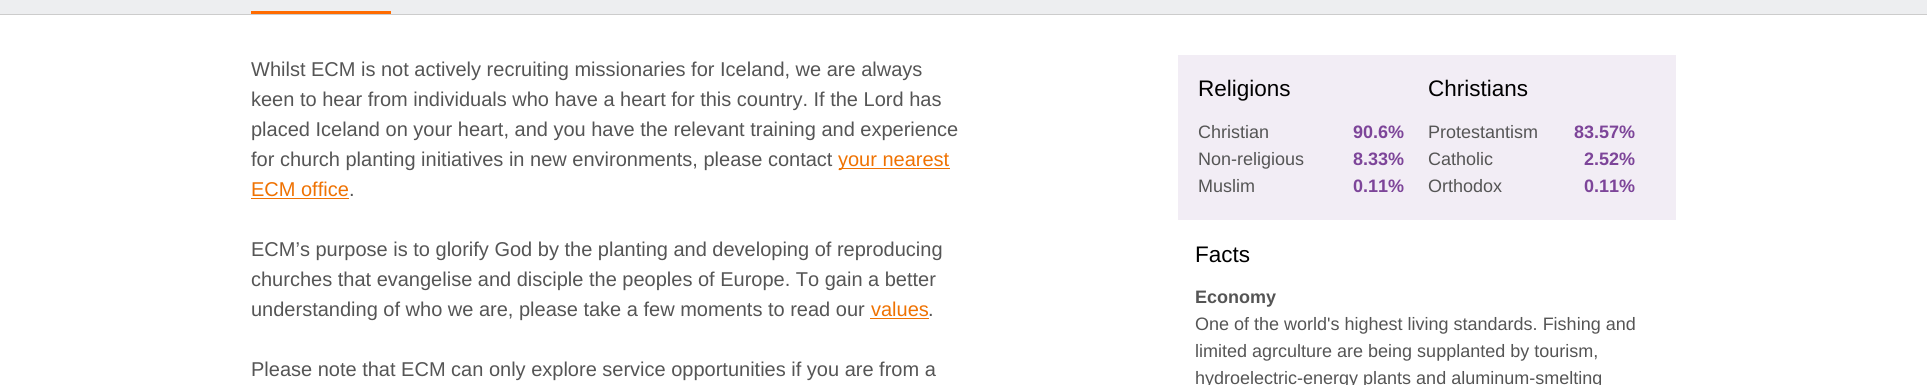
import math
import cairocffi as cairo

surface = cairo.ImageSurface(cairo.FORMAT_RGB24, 1927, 385)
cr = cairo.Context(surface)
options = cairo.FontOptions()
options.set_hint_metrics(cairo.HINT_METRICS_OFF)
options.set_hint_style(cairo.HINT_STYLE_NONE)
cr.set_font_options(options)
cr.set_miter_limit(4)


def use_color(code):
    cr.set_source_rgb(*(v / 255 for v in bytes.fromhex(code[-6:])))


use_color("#ffffff")
cr.paint()
use_color("#edeef0")
cr.rectangle(0, 0, 1927, 14)
cr.fill()
use_color("#cccccc")
cr.rectangle(0, 14, 1927, 1)
cr.fill()
use_color("#ff6b00")
cr.rectangle(251, 11, 140, 3)
cr.fill()
cr.select_font_face("Liberation Sans")
cr.set_font_size(20)
use_color("#555555")
cr.move_to(251, 76)
cr.show_text("Whilst ECM is not actively recruiting missionaries for Iceland, we are always")
cr.move_to(251, 106)
cr.show_text("keen to hear from individuals who have a heart for this country. If the Lord has")
cr.move_to(251, 136)
cr.show_text("placed Iceland on your heart, and you have the relevant training and experience")
cr.move_to(251, 166)
cr.show_text("for church planting initiatives in new environments, please contact")
use_color("#ef7202")
cr.rectangle(839, 168, 111, 1)
cr.fill()
cr.move_to(838, 166)
cr.show_text("your nearest")
cr.move_to(251, 196)
cr.show_text("ECM office")
cr.rectangle(251, 198, 98, 1)
cr.fill()
use_color("#555555")
cr.move_to(349, 196)
cr.show_text(".")
cr.move_to(251, 256)
cr.show_text("ECM’s purpose is to glorify God by the planting and developing of reproducing")
cr.move_to(251, 286)
cr.show_text("churches that evangelise and disciple the peoples of Europe. To gain a better")
cr.move_to(251, 316)
cr.show_text("understanding of who we are, please take a few moments to read our")
use_color("#ef7202")
cr.move_to(871, 316)
cr.show_text("values")
cr.rectangle(870, 318, 59, 1)
cr.fill()
use_color("#555555")
cr.move_to(928, 316)
cr.show_text(".")
cr.move_to(251, 376)
cr.show_text("Please note that ECM can only explore service opportunities if you are from a")
use_color("#f2edf5")
cr.rectangle(1178, 55, 498, 165)
cr.fill()
cr.set_font_size(22.5)
use_color("#000000")
cr.move_to(1198, 96)
cr.show_text("Religions")
cr.set_font_size(18)
use_color("#555555")
cr.move_to(1198, 138)
cr.show_text("Christian")
cr.select_font_face("Liberation Sans", cairo.FONT_SLANT_NORMAL, cairo.FONT_WEIGHT_BOLD)
use_color("#7d4599")
cr.move_to(1353, 138)
cr.show_text("90.6%")
cr.select_font_face("Liberation Sans")
use_color("#555555")
cr.move_to(1198, 165)
cr.show_text("Non-religious")
cr.select_font_face("Liberation Sans", cairo.FONT_SLANT_NORMAL, cairo.FONT_WEIGHT_BOLD)
use_color("#7d4599")
cr.move_to(1353, 165)
cr.show_text("8.33%")
cr.select_font_face("Liberation Sans")
use_color("#555555")
cr.move_to(1198, 192)
cr.show_text("Muslim")
cr.select_font_face("Liberation Sans", cairo.FONT_SLANT_NORMAL, cairo.FONT_WEIGHT_BOLD)
use_color("#7d4599")
cr.move_to(1353, 192)
cr.show_text("0.11%")
cr.select_font_face("Liberation Sans")
cr.set_font_size(22.5)
use_color("#000000")
cr.move_to(1428, 96)
cr.show_text("Christians")
cr.set_font_size(18)
use_color("#555555")
cr.move_to(1428, 138)
cr.show_text("Protestantism")
cr.select_font_face("Liberation Sans", cairo.FONT_SLANT_NORMAL, cairo.FONT_WEIGHT_BOLD)
use_color("#7d4599")
cr.move_to(1574, 138)
cr.show_text("83.57%")
cr.select_font_face("Liberation Sans")
use_color("#555555")
cr.move_to(1428, 165)
cr.show_text("Catholic")
cr.select_font_face("Liberation Sans", cairo.FONT_SLANT_NORMAL, cairo.FONT_WEIGHT_BOLD)
use_color("#7d4599")
cr.move_to(1584, 165)
cr.show_text("2.52%")
cr.select_font_face("Liberation Sans")
use_color("#555555")
cr.move_to(1428, 192)
cr.show_text("Orthodox")
cr.select_font_face("Liberation Sans", cairo.FONT_SLANT_NORMAL, cairo.FONT_WEIGHT_BOLD)
use_color("#7d4599")
cr.move_to(1584, 192)
cr.show_text("0.11%")
cr.select_font_face("Liberation Sans")
cr.set_font_size(22.5)
use_color("#000000")
cr.move_to(1195, 262)
cr.show_text("Facts")
cr.select_font_face("Liberation Sans", cairo.FONT_SLANT_NORMAL, cairo.FONT_WEIGHT_BOLD)
cr.set_font_size(18)
use_color("#555555")
cr.move_to(1195, 303)
cr.show_text("Economy")
cr.select_font_face("Liberation Sans")
cr.move_to(1195, 330)
cr.show_text("One of the world's highest living standards. Fishing and")
cr.move_to(1195, 357)
cr.show_text("limited agrculture are being supplanted by tourism,")
cr.move_to(1195, 384)
cr.show_text("hydroelectric-energy plants and aluminum-smelting")
surface.write_to_png("result.png")
